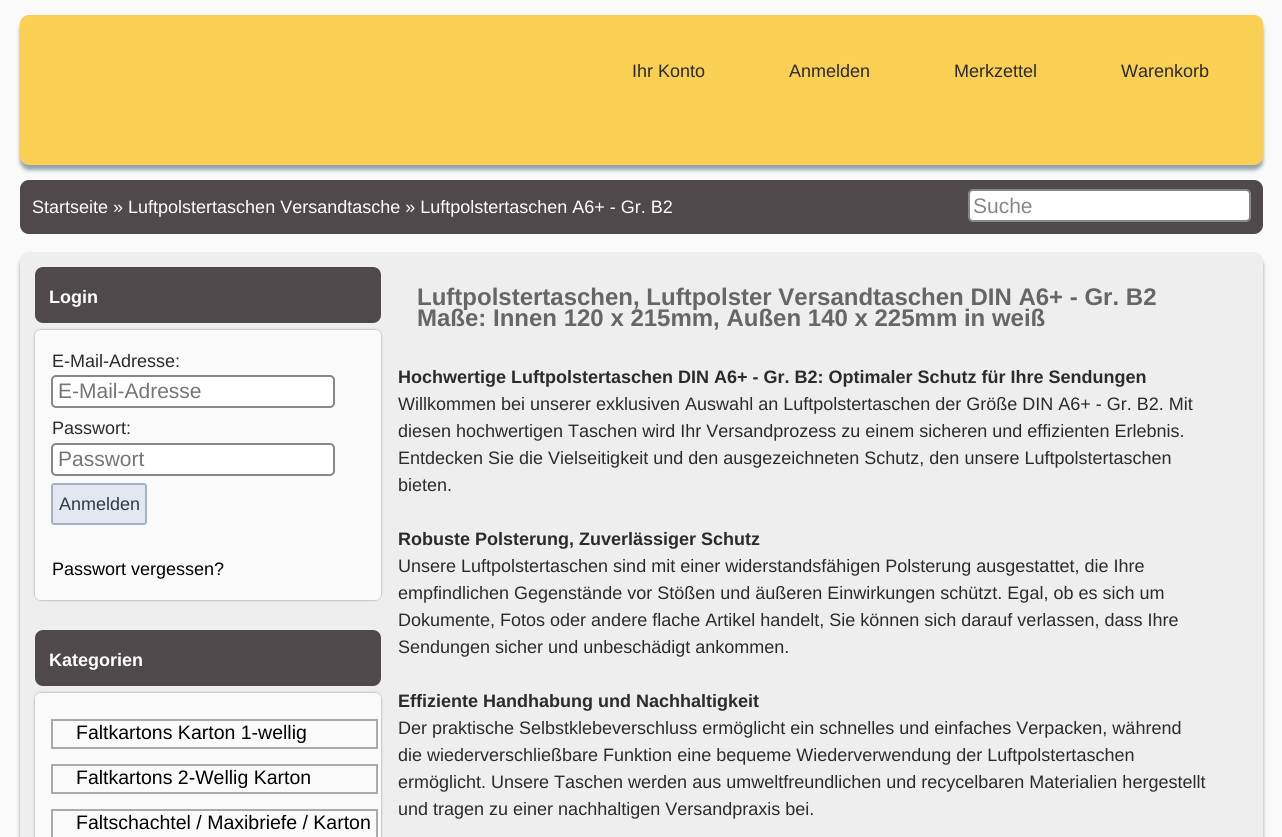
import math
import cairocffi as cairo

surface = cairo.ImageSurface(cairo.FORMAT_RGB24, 1282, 837)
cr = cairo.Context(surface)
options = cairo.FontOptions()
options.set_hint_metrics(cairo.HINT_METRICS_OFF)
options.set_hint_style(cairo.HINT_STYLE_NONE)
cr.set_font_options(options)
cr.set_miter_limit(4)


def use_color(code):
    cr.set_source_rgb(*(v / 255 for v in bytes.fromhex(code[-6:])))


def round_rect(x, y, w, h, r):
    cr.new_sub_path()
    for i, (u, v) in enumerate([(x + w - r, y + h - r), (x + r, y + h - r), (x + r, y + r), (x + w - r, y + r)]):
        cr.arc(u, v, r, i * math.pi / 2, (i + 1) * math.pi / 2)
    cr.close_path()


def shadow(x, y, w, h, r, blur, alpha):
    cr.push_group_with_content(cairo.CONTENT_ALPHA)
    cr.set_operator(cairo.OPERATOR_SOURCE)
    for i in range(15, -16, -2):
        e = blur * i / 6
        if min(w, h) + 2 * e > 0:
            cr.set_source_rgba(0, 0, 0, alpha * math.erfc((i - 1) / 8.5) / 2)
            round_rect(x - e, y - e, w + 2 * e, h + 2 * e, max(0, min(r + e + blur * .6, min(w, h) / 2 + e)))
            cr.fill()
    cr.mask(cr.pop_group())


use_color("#fafafa")
cr.paint()
use_color("#91a0ad")
shadow(20, 20, 1243, 150, 9, 2, 1)
use_color("#f9cf54")
round_rect(20, 15, 1243, 150, 9)
cr.fill()
cr.select_font_face("Liberation Sans")
cr.set_font_size(18)
use_color("#2b2b2b")
cr.move_to(632, 77)
cr.show_text("Ihr Konto")
cr.move_to(789, 77)
cr.show_text("Anmelden")
cr.move_to(954, 77)
cr.show_text("Merkzettel")
cr.move_to(1121, 77)
cr.show_text("Warenkorb")
use_color("#4f494b")
round_rect(20, 180, 1243, 54, 9)
cr.fill()
use_color("#ffffff")
cr.move_to(32, 213)
cr.show_text("Startseite » Luftpolstertaschen Versandtasche » Luftpolstertaschen A6+ - Gr. B2")
round_rect(969, 190, 281, 31, 4)
cr.fill_preserve()
use_color("#888888")
cr.stroke()
cr.set_font_size(21)
cr.move_to(973, 213)
cr.show_text("Suche")
use_color("#91a0ad")
shadow(20, 257, 1243, 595, 9, 2, 1)
use_color("#eeeeee")
round_rect(20, 252, 1243, 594, 9)
cr.fill()
use_color("#4f494b")
round_rect(35, 267, 346, 56, 8)
cr.fill()
cr.select_font_face("Liberation Sans", cairo.FONT_SLANT_NORMAL, cairo.FONT_WEIGHT_BOLD)
cr.set_font_size(18)
use_color("#ffffff")
cr.move_to(49, 303)
cr.show_text("Login")
cr.save()
cr.set_fill_rule(cairo.FILL_RULE_EVEN_ODD)
cr.new_path()
cr.move_to(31, 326)
cr.line_to(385, 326)
cr.line_to(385, 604)
cr.line_to(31, 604)
cr.close_path()
cr.move_to(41, 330)
cr.line_to(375, 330)
cr.curve_to(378.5, 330, 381, 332.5, 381, 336)
cr.line_to(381, 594)
cr.curve_to(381, 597.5, 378.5, 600, 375, 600)
cr.line_to(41, 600)
cr.curve_to(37.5, 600, 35, 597.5, 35, 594)
cr.line_to(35, 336)
cr.curve_to(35, 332.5, 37.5, 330, 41, 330)
cr.close_path()
cr.clip()
use_color("#888888")
shadow(35, 330, 346, 270, 6, 1, 1)
cr.restore()
cr.set_source_rgba(1, 1, 1, 0.7)
round_rect(35, 330, 346, 270, 6)
cr.fill()
cr.select_font_face("Liberation Sans")
use_color("#2b2b2b")
cr.move_to(52, 367)
cr.show_text("E-Mail-Adresse:")
use_color("#ffffff")
round_rect(52, 376, 282, 31, 4)
cr.fill_preserve()
use_color("#888888")
cr.stroke()
cr.set_font_size(21)
use_color("#757575")
cr.move_to(58, 398)
cr.show_text("E-Mail-Adresse")
cr.set_font_size(18)
use_color("#2b2b2b")
cr.move_to(52, 434)
cr.show_text("Passwort:")
use_color("#ffffff")
round_rect(52, 444, 282, 31, 4)
cr.fill_preserve()
use_color("#888888")
cr.stroke()
cr.set_font_size(21)
use_color("#757575")
cr.move_to(58, 466)
cr.show_text("Passwort")
use_color("#e3e8f0")
round_rect(52, 484, 94, 40, 2)
cr.fill_preserve()
use_color("#a6b2c1")
cr.stroke()
cr.set_font_size(18)
use_color("#303a45")
cr.move_to(59, 510)
cr.show_text("Anmelden")
use_color("#000000")
cr.move_to(52, 575)
cr.show_text("Passwort vergessen?")
use_color("#4f494b")
round_rect(35, 630, 346, 56, 8)
cr.fill()
cr.select_font_face("Liberation Sans", cairo.FONT_SLANT_NORMAL, cairo.FONT_WEIGHT_BOLD)
use_color("#ffffff")
cr.move_to(49, 666)
cr.show_text("Kategorien")
cr.save()
cr.set_fill_rule(cairo.FILL_RULE_EVEN_ODD)
cr.new_path()
cr.move_to(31, 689)
cr.line_to(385, 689)
cr.line_to(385, 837)
cr.line_to(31, 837)
cr.close_path()
cr.move_to(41, 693)
cr.line_to(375, 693)
cr.curve_to(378.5, 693, 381, 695.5, 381, 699)
cr.line_to(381, 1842)
cr.curve_to(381, 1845.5, 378.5, 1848, 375, 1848)
cr.line_to(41, 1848)
cr.curve_to(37.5, 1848, 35, 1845.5, 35, 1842)
cr.line_to(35, 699)
cr.curve_to(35, 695.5, 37.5, 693, 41, 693)
cr.close_path()
cr.clip()
use_color("#888888")
shadow(35, 693, 346, 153, 6, 1, 1)
cr.restore()
cr.set_source_rgba(1, 1, 1, 0.7)
round_rect(35, 693, 346, 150, 6)
cr.fill()
cr.rectangle(52, 720, 325, 28)
use_color("#aaaaaa")
cr.stroke()
cr.select_font_face("Liberation Sans")
cr.set_font_size(19.5)
use_color("#000000")
cr.move_to(76, 739)
cr.show_text("Faltkartons Karton 1-wellig")
cr.rectangle(52, 765, 325, 28)
use_color("#aaaaaa")
cr.stroke()
use_color("#000000")
cr.move_to(76, 784)
cr.show_text("Faltkartons 2-Wellig Karton")
cr.rectangle(52, 810, 325, 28)
use_color("#aaaaaa")
cr.stroke()
use_color("#000000")
cr.move_to(76, 829)
cr.show_text("Faltschachtel / Maxibriefe / Karton")
cr.select_font_face("Liberation Sans", cairo.FONT_SLANT_NORMAL, cairo.FONT_WEIGHT_BOLD)
cr.set_font_size(24)
use_color("#666666")
cr.move_to(417, 305)
cr.show_text("Luftpolstertaschen, Luftpolster Versandtaschen DIN A6+ - Gr. B2")
cr.move_to(417, 326)
cr.show_text("Maße: Innen 120 x 215mm, Außen 140 x 225mm in weiß")
cr.set_font_size(18)
use_color("#2b2b2b")
cr.move_to(398, 383)
cr.show_text("Hochwertige Luftpolstertaschen DIN A6+ - Gr. B2: Optimaler Schutz für Ihre Sendungen")
cr.select_font_face("Liberation Sans")
cr.move_to(398, 410)
cr.show_text("Willkommen bei unserer exklusiven Auswahl an Luftpolstertaschen der Größe DIN A6+ - Gr. B2. Mit")
cr.move_to(398, 437)
cr.show_text("diesen hochwertigen Taschen wird Ihr Versandprozess zu einem sicheren und effizienten Erlebnis.")
cr.move_to(398, 464)
cr.show_text("Entdecken Sie die Vielseitigkeit und den ausgezeichneten Schutz, den unsere Luftpolstertaschen")
cr.move_to(398, 491)
cr.show_text("bieten.")
cr.select_font_face("Liberation Sans", cairo.FONT_SLANT_NORMAL, cairo.FONT_WEIGHT_BOLD)
cr.move_to(398, 545)
cr.show_text("Robuste Polsterung, Zuverlässiger Schutz")
cr.select_font_face("Liberation Sans")
cr.move_to(398, 572)
cr.show_text("Unsere Luftpolstertaschen sind mit einer widerstandsfähigen Polsterung ausgestattet, die Ihre")
cr.move_to(398, 599)
cr.show_text("empfindlichen Gegenstände vor Stößen und äußeren Einwirkungen schützt. Egal, ob es sich um")
cr.move_to(398, 626)
cr.show_text("Dokumente, Fotos oder andere flache Artikel handelt, Sie können sich darauf verlassen, dass Ihre")
cr.move_to(398, 653)
cr.show_text("Sendungen sicher und unbeschädigt ankommen.")
cr.select_font_face("Liberation Sans", cairo.FONT_SLANT_NORMAL, cairo.FONT_WEIGHT_BOLD)
cr.move_to(398, 707)
cr.show_text("Effiziente Handhabung und Nachhaltigkeit")
cr.select_font_face("Liberation Sans")
cr.move_to(398, 734)
cr.show_text("Der praktische Selbstklebeverschluss ermöglicht ein schnelles und einfaches Verpacken, während")
cr.move_to(398, 761)
cr.show_text("die wiederverschließbare Funktion eine bequeme Wiederverwendung der Luftpolstertaschen")
cr.move_to(398, 788)
cr.show_text("ermöglicht. Unsere Taschen werden aus umweltfreundlichen und recycelbaren Materialien hergestellt")
cr.move_to(398, 815)
cr.show_text("und tragen zu einer nachhaltigen Versandpraxis bei.")
surface.write_to_png("result.png")
